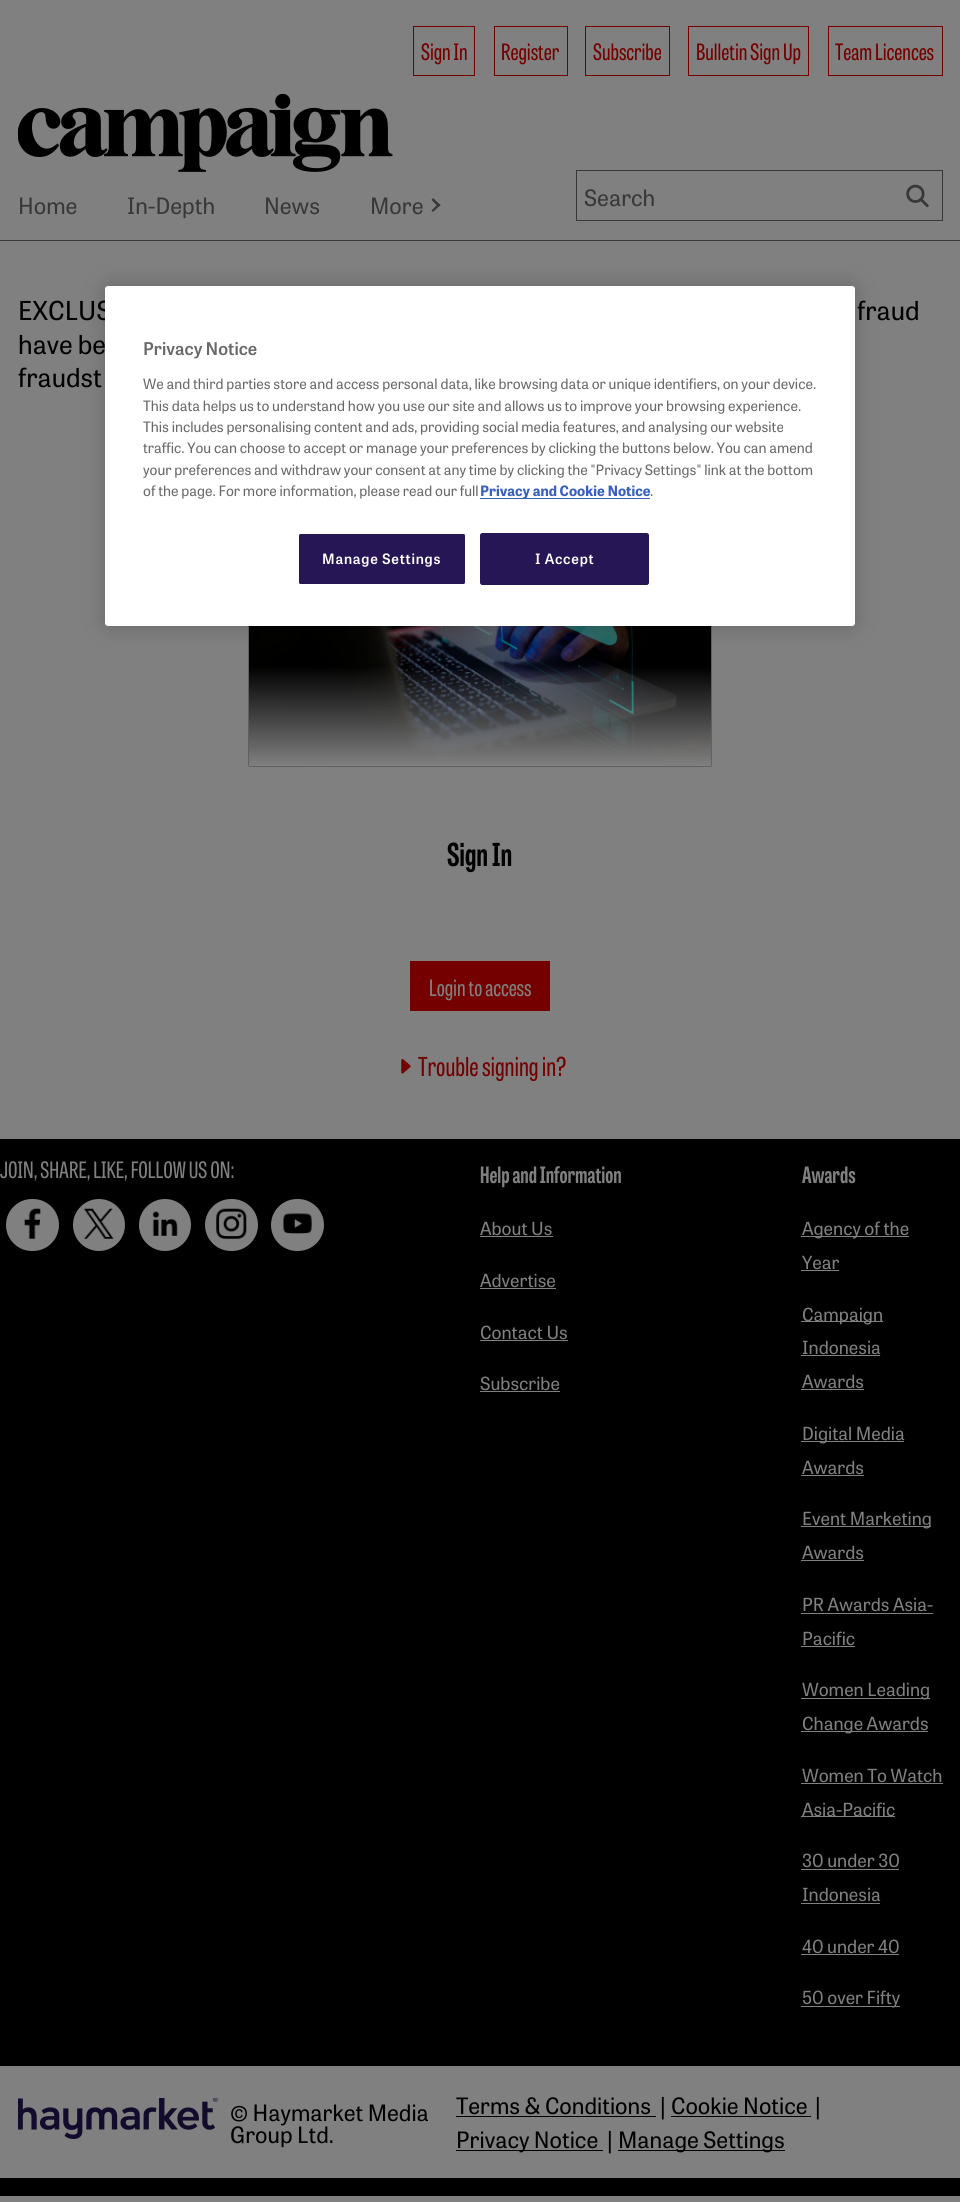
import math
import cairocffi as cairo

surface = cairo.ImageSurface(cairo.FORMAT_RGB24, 960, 2202)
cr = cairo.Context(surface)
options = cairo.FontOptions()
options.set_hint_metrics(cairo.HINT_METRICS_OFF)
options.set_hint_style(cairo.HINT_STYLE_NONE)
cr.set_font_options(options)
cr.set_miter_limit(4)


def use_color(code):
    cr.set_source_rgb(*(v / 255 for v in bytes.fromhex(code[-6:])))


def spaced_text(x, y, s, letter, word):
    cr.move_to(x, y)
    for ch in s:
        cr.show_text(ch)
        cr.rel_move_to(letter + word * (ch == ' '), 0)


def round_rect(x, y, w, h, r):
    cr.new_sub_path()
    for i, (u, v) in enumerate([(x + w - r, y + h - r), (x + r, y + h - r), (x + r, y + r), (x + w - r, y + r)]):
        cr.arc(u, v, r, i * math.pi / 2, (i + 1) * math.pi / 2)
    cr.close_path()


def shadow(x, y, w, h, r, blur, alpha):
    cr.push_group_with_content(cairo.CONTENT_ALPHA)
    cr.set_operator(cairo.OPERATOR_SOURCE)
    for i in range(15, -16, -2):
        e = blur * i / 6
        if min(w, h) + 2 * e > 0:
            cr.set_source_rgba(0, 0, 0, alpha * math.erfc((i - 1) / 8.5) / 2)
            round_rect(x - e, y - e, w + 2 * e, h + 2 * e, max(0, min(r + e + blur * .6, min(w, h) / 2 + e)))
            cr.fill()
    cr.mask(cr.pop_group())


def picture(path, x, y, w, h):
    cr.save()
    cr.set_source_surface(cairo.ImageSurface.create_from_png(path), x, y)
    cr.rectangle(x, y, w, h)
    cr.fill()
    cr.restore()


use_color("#808080")
cr.paint()
use_color("#393839")
cr.rectangle(0, 240, 960, 1)
cr.fill()
cr.rectangle(413.5, 26.5, 61, 49)
use_color("#740000")
cr.set_line_width(1)
cr.stroke()
cr.select_font_face("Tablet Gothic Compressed")
cr.set_font_size(22.5)
cr.move_to(421, 60)
cr.show_text("Sign In")
cr.rectangle(494.5, 26.5, 73, 49)
cr.stroke()
cr.move_to(501, 60)
cr.show_text("Register")
cr.rectangle(585.5, 26.5, 84, 49)
cr.stroke()
cr.move_to(593, 60)
cr.show_text("Subscribe")
cr.rectangle(688.5, 26.5, 120, 49)
cr.stroke()
cr.move_to(696, 60)
cr.show_text("Bulletin Sign Up")
cr.rectangle(828.5, 26.5, 114, 49)
cr.stroke()
cr.move_to(835, 60)
cr.show_text("Team Licences")
picture("img1.png", 18, 94, 375, 78)
cr.select_font_face("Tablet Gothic")
use_color("#393839")
cr.move_to(18, 214)
cr.show_text("Home")
cr.move_to(127, 214)
cr.show_text("In-Depth")
cr.move_to(264, 214)
cr.show_text("News")
cr.move_to(370, 214)
cr.show_text("More")
cr.new_path()
cr.move_to(431.5, 200)
cr.line_to(433, 198)
cr.line_to(440.5, 205)
cr.line_to(438.5, 207)
cr.close_path()
cr.fill()
cr.new_path()
cr.move_to(431.5, 210.5)
cr.line_to(438.5, 203.5)
cr.line_to(440.5, 205)
cr.line_to(433, 212)
cr.close_path()
cr.fill()
cr.rectangle(576.5, 170.5, 366, 50)
cr.stroke()
cr.move_to(584, 206)
cr.show_text("Search")
picture("img2.png", 906, 184, 23, 24)
cr.set_font_size(26)
use_color("#000000")
cr.move_to(18, 320)
cr.show_text("EXCLUS")
cr.move_to(857, 320)
cr.show_text("fraud")
cr.move_to(18, 354)
cr.show_text("have be")
cr.move_to(18, 387)
cr.show_text("fraudst")
picture("img3.png", 248, 626, 464, 141)
cr.select_font_face("Tablet Gothic Compressed", cairo.FONT_SLANT_NORMAL, cairo.FONT_WEIGHT_BOLD)
cr.set_font_size(31.5)
cr.move_to(447, 866)
cr.show_text("Sign In")
use_color("#740000")
cr.rectangle(410, 961, 140, 50)
cr.fill()
cr.select_font_face("Tablet Gothic Compressed")
cr.set_font_size(22.5)
use_color("#808080")
cr.move_to(429, 996)
cr.show_text("Login to access")
picture("img4.png", 401, 1059, 10, 15)
cr.set_font_size(26)
use_color("#740000")
cr.move_to(418, 1076)
cr.show_text("Trouble signing in?")
use_color("#000000")
cr.rectangle(0, 1139, 960, 1057)
cr.fill()
cr.set_font_size(22.5)
use_color("#808080")
cr.move_to(0, 1178)
cr.show_text("JOIN, SHARE, LIKE, FOLLOW US ON:")
round_rect(6, 1199, 53, 52, 26)
cr.fill()
picture("img5.png", 24, 1208, 17, 31)
cr.arc(99, 1225, 26, 0, 2 * math.pi)
cr.fill()
picture("img6.png", 83, 1208, 31, 31)
cr.arc(165, 1225, 26, 0, 2 * math.pi)
cr.fill()
picture("img7.png", 152, 1211, 26, 25)
round_rect(205, 1199, 53, 52, 26)
cr.fill()
picture("img8.png", 216, 1208, 31, 31)
round_rect(271, 1199, 53, 52, 26)
cr.fill()
picture("img9.png", 283, 1213, 29, 21)
cr.select_font_face("Tablet Gothic Compressed", cairo.FONT_SLANT_NORMAL, cairo.FONT_WEIGHT_BOLD)
cr.move_to(480, 1183)
cr.show_text("Help and Information")
cr.select_font_face("Tablet Gothic")
cr.set_font_size(18)
cr.move_to(480, 1235)
cr.show_text("About Us")
cr.rectangle(480, 1236, 73, 1)
cr.fill()
cr.move_to(480, 1287)
cr.show_text("Advertise")
cr.rectangle(480, 1288, 76, 1)
cr.fill()
cr.move_to(480, 1339)
cr.show_text("Contact Us")
cr.rectangle(480, 1340, 88, 1)
cr.fill()
cr.move_to(480, 1390)
cr.show_text("Subscribe")
cr.rectangle(480, 1391, 80, 1)
cr.fill()
cr.select_font_face("Tablet Gothic Compressed", cairo.FONT_SLANT_NORMAL, cairo.FONT_WEIGHT_BOLD)
cr.set_font_size(22.5)
cr.move_to(802, 1183)
cr.show_text("Awards")
cr.rectangle(801, 1236, 108, 1)
cr.fill()
cr.select_font_face("Tablet Gothic")
cr.set_font_size(18)
cr.move_to(802, 1235)
cr.show_text("Agency of the")
cr.move_to(802, 1269)
cr.show_text("Year")
cr.rectangle(801, 1270, 38, 1)
cr.fill()
cr.rectangle(801, 1321, 82, 1)
cr.fill()
cr.move_to(802, 1321)
cr.show_text("Campaign")
cr.move_to(802, 1354)
cr.show_text("Indonesia")
cr.rectangle(801, 1355, 79, 1)
cr.fill()
cr.move_to(802, 1388)
cr.show_text("Awards")
cr.rectangle(801, 1389, 63, 1)
cr.fill()
cr.rectangle(801, 1441, 103, 1)
cr.fill()
cr.move_to(802, 1440)
cr.show_text("Digital Media")
cr.move_to(802, 1474)
cr.show_text("Awards")
cr.rectangle(801, 1475, 63, 1)
cr.fill()
cr.rectangle(801, 1526, 130, 1)
cr.fill()
cr.move_to(802, 1525)
cr.show_text("Event Marketing")
cr.move_to(802, 1559)
cr.show_text("Awards")
cr.rectangle(801, 1560, 63, 1)
cr.fill()
cr.move_to(802, 1611)
cr.show_text("PR Awards Asia-")
cr.rectangle(801, 1613, 132, 1)
cr.fill()
cr.move_to(802, 1645)
cr.show_text("Pacific")
cr.rectangle(801, 1646, 54, 1)
cr.fill()
cr.rectangle(801, 1698, 129, 1)
cr.fill()
cr.move_to(802, 1696)
cr.show_text("Women Leading")
cr.rectangle(801, 1731, 127, 1)
cr.fill()
cr.move_to(802, 1730)
cr.show_text("Change Awards")
cr.move_to(802, 1782)
cr.show_text("Women To Watch")
cr.rectangle(801, 1783, 142, 1)
cr.fill()
cr.rectangle(801, 1816, 94, 1)
cr.fill()
cr.move_to(802, 1816)
cr.show_text("Asia-Pacific")
cr.move_to(802, 1867)
cr.show_text("30 under 30")
cr.rectangle(801, 1869, 98, 1)
cr.fill()
cr.move_to(802, 1901)
cr.show_text("Indonesia")
cr.rectangle(801, 1903, 79, 1)
cr.fill()
cr.move_to(802, 1953)
cr.show_text("40 under 40")
cr.rectangle(801, 1954, 98, 1)
cr.fill()
cr.rectangle(801, 2006, 99, 1)
cr.fill()
cr.move_to(802, 2004)
cr.show_text("50 over Fifty")
cr.rectangle(0, 2066, 960, 112)
cr.fill()
picture("img10.png", 18, 2098, 200, 41)
cr.set_font_size(22.5)
use_color("#000000")
cr.move_to(230, 2121)
cr.show_text("© Haymarket Media")
cr.move_to(230, 2143)
cr.show_text("Group Ltd.")
cr.move_to(456, 2114)
cr.show_text("Terms & Conditions")
cr.rectangle(456, 2116, 200, 1)
cr.fill()
cr.move_to(660, 2114)
cr.show_text("|")
cr.move_to(671, 2114)
cr.show_text("Cookie Notice")
cr.rectangle(671, 2116, 140, 1)
cr.fill()
cr.move_to(815, 2114)
cr.show_text("|")
cr.rectangle(456, 2150, 147, 1)
cr.fill()
cr.move_to(456, 2148)
cr.show_text("Privacy Notice")
cr.move_to(607, 2148)
cr.show_text("|")
cr.rectangle(618, 2150, 167, 1)
cr.fill()
cr.move_to(618, 2148)
cr.show_text("Manage Settings")
use_color("#000000")
shadow(105, 286, 750, 340, 3, 11, 0.2)
use_color("#ffffff")
round_rect(105, 286, 750, 340, 3)
cr.fill()
cr.select_font_face("Tablet Gothic SemiBold")
cr.set_font_size(17.5)
use_color("#696969")
cr.move_to(143, 355)
cr.show_text("Privacy Notice")
cr.select_font_face("Tablet Gothic")
cr.set_font_size(14.25)
cr.move_to(143, 389)
cr.show_text("We and third parties store and access personal data, like browsing data or unique identifiers, on your device.")
cr.move_to(143, 411)
cr.show_text("This data helps us to understand how you use our site and allows us to improve your browsing experience.")
cr.move_to(143, 432)
cr.show_text("This includes personalising content and ads, providing social media features, and analysing our website")
cr.move_to(143, 453)
cr.show_text("traffic. You can choose to accept or manage your preferences by clicking the buttons below. You can amend")
cr.move_to(143, 475)
cr.show_text("your preferences and withdraw your consent at any time by clicking the \"Privacy Settings\" link at the bottom")
cr.move_to(143, 496)
cr.show_text("of the page. For more information, please read our full")
use_color("#3860be")
cr.rectangle(480, 498, 170, 1)
cr.fill()
cr.select_font_face("Tablet Gothic", cairo.FONT_SLANT_NORMAL, cairo.FONT_WEIGHT_BOLD)
cr.move_to(480, 496)
cr.show_text("Privacy and Cookie Notice")
cr.select_font_face("Tablet Gothic")
use_color("#696969")
cr.move_to(650, 496)
cr.show_text(".")
use_color("#261656")
round_rect(298.5, 533.5, 167, 51, 2)
cr.fill_preserve()
use_color("#ffffff")
cr.stroke()
cr.select_font_face("Tablet Gothic SemiBold")
spaced_text(322, 564, "Manage Settings", 0.75, 0)
use_color("#261656")
round_rect(480.5, 533.5, 168, 51, 2)
cr.fill_preserve()
cr.stroke()
use_color("#ffffff")
spaced_text(535, 564, "I Accept", 0.75, 0)
surface.write_to_png("result.png")
